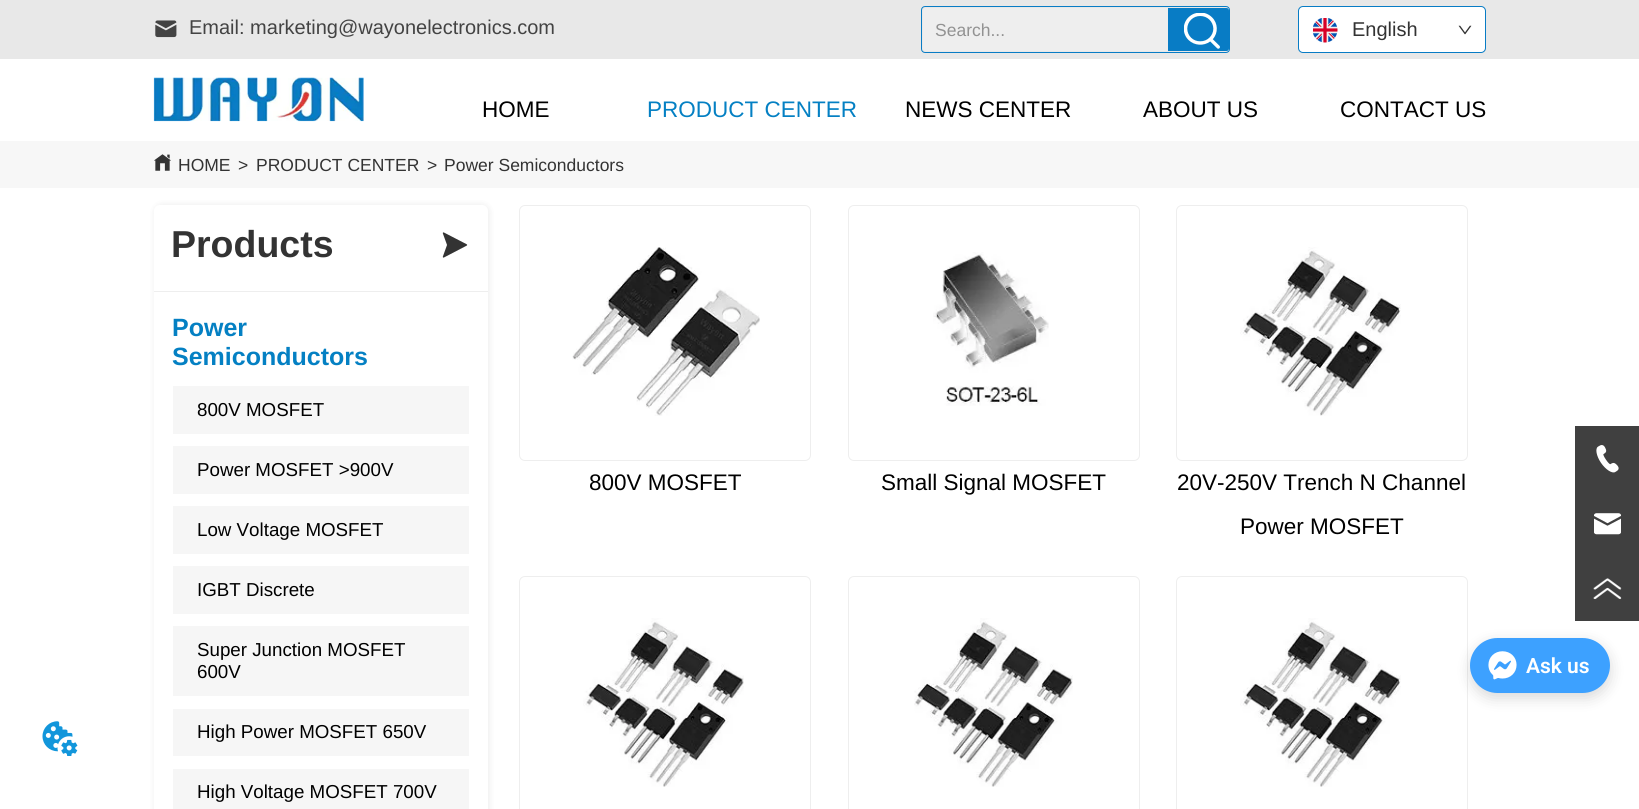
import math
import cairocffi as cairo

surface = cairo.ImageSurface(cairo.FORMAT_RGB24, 1639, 809)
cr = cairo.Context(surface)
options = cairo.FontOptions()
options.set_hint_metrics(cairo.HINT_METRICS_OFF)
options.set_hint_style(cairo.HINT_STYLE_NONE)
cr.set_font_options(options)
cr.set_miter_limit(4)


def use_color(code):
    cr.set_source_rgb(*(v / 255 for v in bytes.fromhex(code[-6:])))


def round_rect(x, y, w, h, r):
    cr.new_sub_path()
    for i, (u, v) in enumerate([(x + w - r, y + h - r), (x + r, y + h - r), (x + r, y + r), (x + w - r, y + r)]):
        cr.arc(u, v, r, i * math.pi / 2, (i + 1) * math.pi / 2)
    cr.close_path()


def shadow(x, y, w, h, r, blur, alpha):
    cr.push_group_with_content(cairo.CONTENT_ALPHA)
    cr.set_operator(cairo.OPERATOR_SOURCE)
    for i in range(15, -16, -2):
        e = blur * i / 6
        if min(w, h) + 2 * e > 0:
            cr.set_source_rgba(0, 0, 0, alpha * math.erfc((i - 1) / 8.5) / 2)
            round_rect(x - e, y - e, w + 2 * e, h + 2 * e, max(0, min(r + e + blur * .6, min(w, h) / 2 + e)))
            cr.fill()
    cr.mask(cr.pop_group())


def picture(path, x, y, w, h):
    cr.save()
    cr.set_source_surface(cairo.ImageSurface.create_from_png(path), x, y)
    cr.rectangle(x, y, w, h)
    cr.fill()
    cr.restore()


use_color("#ffffff")
cr.paint()
use_color("#e8e8e8")
cr.rectangle(0, 0, 1639, 59)
cr.fill()
picture("img1.png", 155, 20, 22, 18)
cr.select_font_face("Liberation Sans")
cr.set_font_size(20)
use_color("#434343")
cr.move_to(189, 34)
cr.show_text("Email: marketing@wayonelectronics.com")
round_rect(921.5, 6.5, 308, 46, 3.5)
use_color("#087cc5")
cr.set_line_width(1)
cr.stroke()
use_color("#eeeeee")
round_rect(923, 8, 306, 43, 2.5)
cr.fill()
cr.set_font_size(17.5)
use_color("#929292")
cr.move_to(935, 36)
cr.show_text("Search...")
use_color("#087cc5")
cr.new_path()
cr.move_to(1168, 8)
cr.line_to(1226.5, 8)
cr.curve_to(1228, 8, 1229, 9, 1229, 10.5)
cr.line_to(1229, 48.5)
cr.curve_to(1229, 50, 1228, 51, 1226.5, 51)
cr.line_to(1168, 51)
cr.close_path()
cr.fill()
picture("img2.png", 1184, 13, 36, 36)
use_color("#ffffff")
round_rect(1298.5, 6.5, 187, 46, 4.5)
cr.fill_preserve()
use_color("#087cc5")
cr.stroke()
picture("img3.png", 1313, 18, 25, 25)
cr.set_font_size(20)
use_color("#333333")
cr.move_to(1352, 36)
cr.show_text("English")
picture("img4.png", 1458, 25, 14, 10)
picture("img5.png", 153, 77, 211, 45)
cr.set_font_size(22.5)
use_color("#000000")
cr.move_to(482, 117)
cr.show_text("HOME")
use_color("#0480c3")
cr.move_to(647, 117)
cr.show_text("PRODUCT CENTER")
use_color("#000000")
cr.move_to(905, 117)
cr.show_text("NEWS CENTER")
cr.move_to(1143, 117)
cr.show_text("ABOUT US")
cr.move_to(1340, 117)
cr.show_text("CONTACT US")
use_color("#f7f7f7")
cr.rectangle(0, 141, 1639, 47)
cr.fill()
picture("img6.png", 154, 154, 17, 17)
cr.set_font_size(17.5)
use_color("#333333")
cr.move_to(178, 171)
cr.show_text("HOME")
cr.move_to(238, 171)
cr.show_text(">")
cr.move_to(256, 171)
cr.show_text("PRODUCT CENTER")
cr.move_to(427, 171)
cr.show_text(">")
cr.move_to(444, 171)
cr.show_text("Power Semiconductors")
use_color("#333333")
shadow(154, 204, 336, 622, 8, 3, 0.08)
use_color("#ffffff")
round_rect(154, 205, 334, 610, 6)
cr.fill()
cr.select_font_face("Liberation Sans", cairo.FONT_SLANT_NORMAL, cairo.FONT_WEIGHT_BOLD)
cr.set_font_size(37.5)
use_color("#333333")
cr.move_to(171, 257)
cr.show_text("Products")
picture("img7.png", 442, 232, 26, 26)
use_color("#eeeeee")
cr.rectangle(154, 291, 334, 1)
cr.fill()
cr.set_font_size(25)
use_color("#0480c3")
cr.move_to(172, 336)
cr.show_text("Power")
cr.move_to(172, 365)
cr.show_text("Semiconductors")
use_color("#f6f6f6")
cr.rectangle(173, 386, 296, 48)
cr.fill()
cr.select_font_face("Liberation Sans")
cr.set_font_size(18.75)
use_color("#000000")
cr.move_to(197, 416)
cr.show_text("800V MOSFET")
use_color("#f6f6f6")
cr.rectangle(173, 446, 296, 48)
cr.fill()
use_color("#000000")
cr.move_to(197, 476)
cr.show_text("Power MOSFET >900V")
use_color("#f6f6f6")
cr.rectangle(173, 506, 296, 48)
cr.fill()
use_color("#000000")
cr.move_to(197, 536)
cr.show_text("Low Voltage MOSFET")
use_color("#f6f6f6")
cr.rectangle(173, 566, 296, 48)
cr.fill()
use_color("#000000")
cr.move_to(197, 596)
cr.show_text("IGBT Discrete")
use_color("#f6f6f6")
cr.rectangle(173, 626, 296, 70)
cr.fill()
use_color("#000000")
cr.move_to(197, 656)
cr.show_text("Super Junction MOSFET")
cr.move_to(197, 678)
cr.show_text("600V")
use_color("#f6f6f6")
cr.rectangle(173, 709, 296, 47)
cr.fill()
use_color("#000000")
cr.move_to(197, 738)
cr.show_text("High Power MOSFET 650V")
use_color("#f6f6f6")
cr.rectangle(173, 769, 296, 40)
cr.fill()
use_color("#000000")
cr.move_to(197, 798)
cr.show_text("High Voltage MOSFET 700V")
picture("img8.png", 572, 247, 188, 169)
round_rect(519.5, 205.5, 291, 255, 5.5)
use_color("#eeeeee")
cr.stroke()
cr.set_font_size(22.5)
use_color("#000000")
cr.move_to(589, 490)
cr.show_text("800V MOSFET")
picture("img9.png", 933, 252, 116, 154)
round_rect(848.5, 205.5, 291, 255, 5.5)
use_color("#eeeeee")
cr.stroke()
use_color("#000000")
cr.move_to(881, 490)
cr.show_text("Small Signal MOSFET")
picture("img10.png", 1240, 247, 161, 169)
round_rect(1176.5, 205.5, 291, 255, 5.5)
use_color("#eeeeee")
cr.stroke()
use_color("#000000")
cr.move_to(1177, 490)
cr.show_text("20V-250V Trench N Channel")
cr.move_to(1240, 534)
cr.show_text("Power MOSFET")
picture("img11.png", 583, 618, 161, 169)
round_rect(519.5, 576.5, 291, 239, 5.5)
use_color("#eeeeee")
cr.stroke()
picture("img12.png", 914, 618, 159, 169)
round_rect(848.5, 576.5, 291, 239, 5.5)
cr.stroke()
picture("img13.png", 1240, 618, 161, 169)
round_rect(1176.5, 576.5, 291, 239, 5.5)
cr.stroke()
use_color("#404040")
cr.rectangle(1575, 426, 64, 195)
cr.fill()
picture("img14.png", 1596, 445, 23, 28)
picture("img15.png", 1594, 513, 27, 22)
picture("img16.png", 1593, 578, 29, 22)
use_color("#000000")
shadow(1471, 643, 139, 55, 27.5, 7.5, 0.15)
use_color("#3da1ff")
round_rect(1470, 638, 140, 55, 27.5)
cr.fill()
picture("img17.png", 1488, 651, 29, 29)
cr.select_font_face("Roboto SemiBold")
cr.set_font_size(21)
use_color("#ffffff")
cr.move_to(1526, 673)
cr.show_text("Ask us")
picture("img18.png", 42, 721, 36, 35)
surface.write_to_png("result.png")
